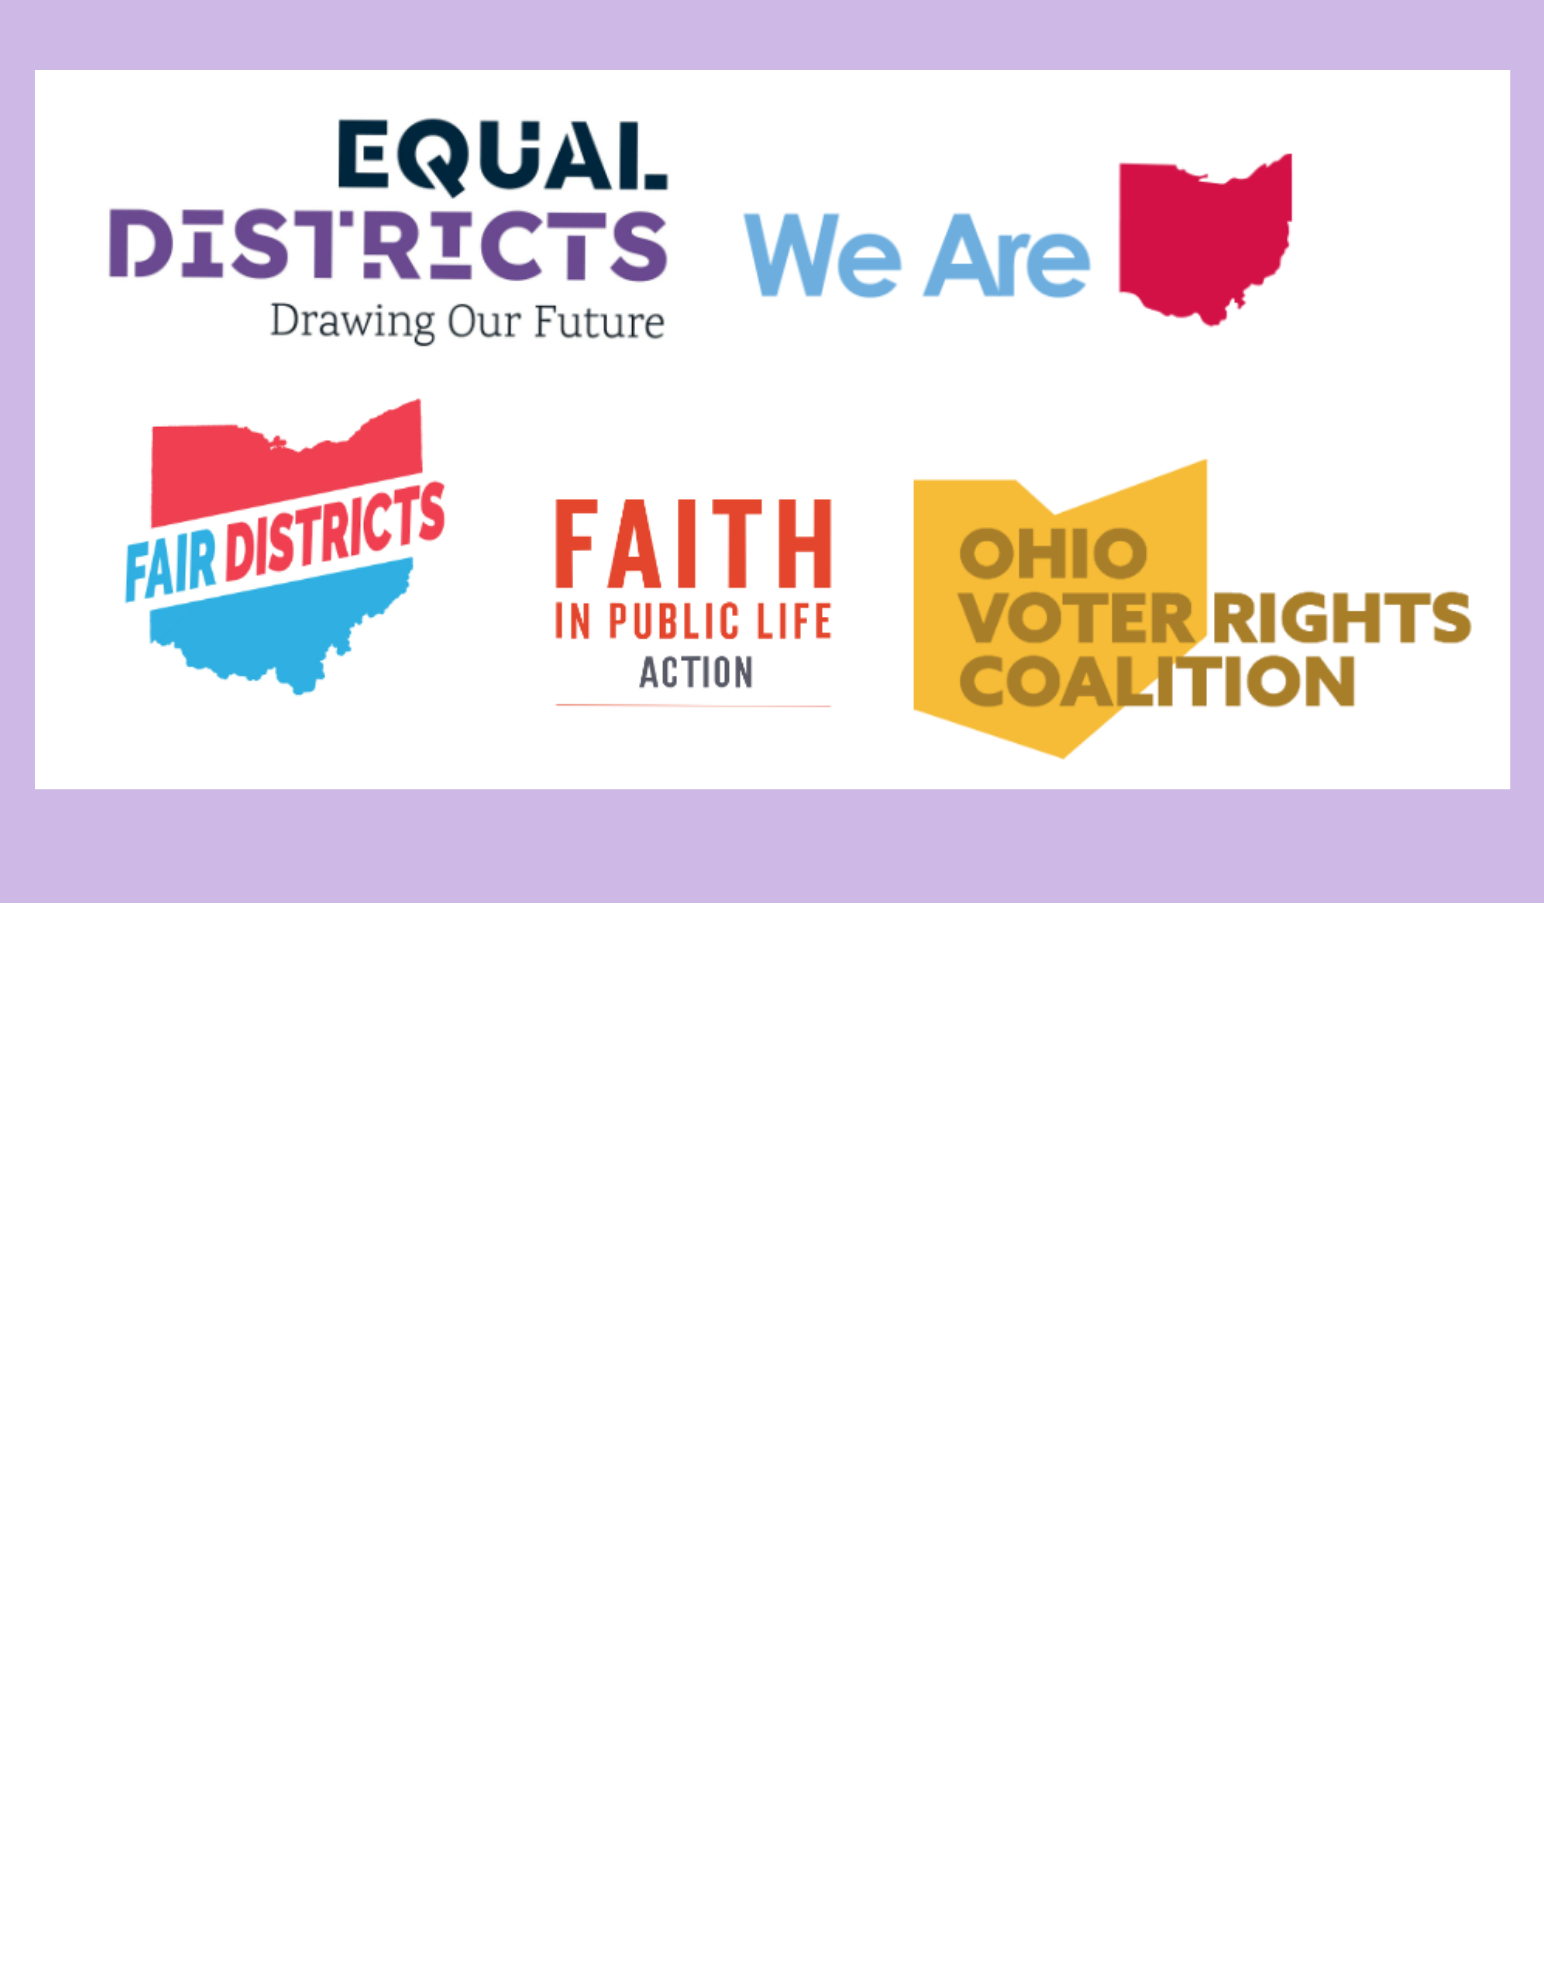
#include "include/core/SkBlurTypes.h"
#include "include/core/SkCanvas.h"
#include "include/core/SkData.h"
#include "include/core/SkFont.h"
#include "include/core/SkFontMgr.h"
#include "include/core/SkImage.h"
#include "include/core/SkMaskFilter.h"
#include "include/core/SkPaint.h"
#include "include/core/SkPathBuilder.h"
#include "include/core/SkTextBlob.h"
#include "include/effects/SkDashPathEffect.h"
#include "include/effects/SkGradientShader.h"
#include "include/utils/SkParsePath.h"

extern sk_sp<SkFontMgr> fontMgr;

static void fillRect(SkCanvas* canvas, float x, float y, float w, float h, SkColor color) {
    SkPaint ink(SkColor4f::FromColor(color));
    ink.setAntiAlias(true);
    canvas->drawRect(SkRect::MakeXYWH(x, y, w, h), ink);
}

static void drawPhoto(SkCanvas* canvas, const char* path, float x, float y, float w, float h) {
    auto image = SkImages::DeferredFromEncodedData(SkData::MakeFromFileName(path));
    canvas->drawImageRect(image, SkRect::MakeXYWH(x, y, w, h), SkSamplingOptions());
}

void draw(SkCanvas* canvas) {
    SkPaint paint;
    paint.setAntiAlias(true);
    canvas->clear(0xFFFFFFFF);
    fillRect(canvas, 0, 0, 1544, 903, 0xFFCDB8E6);
    drawPhoto(canvas, "assets/img1.png", 35, 70, 1476, 720);
}
